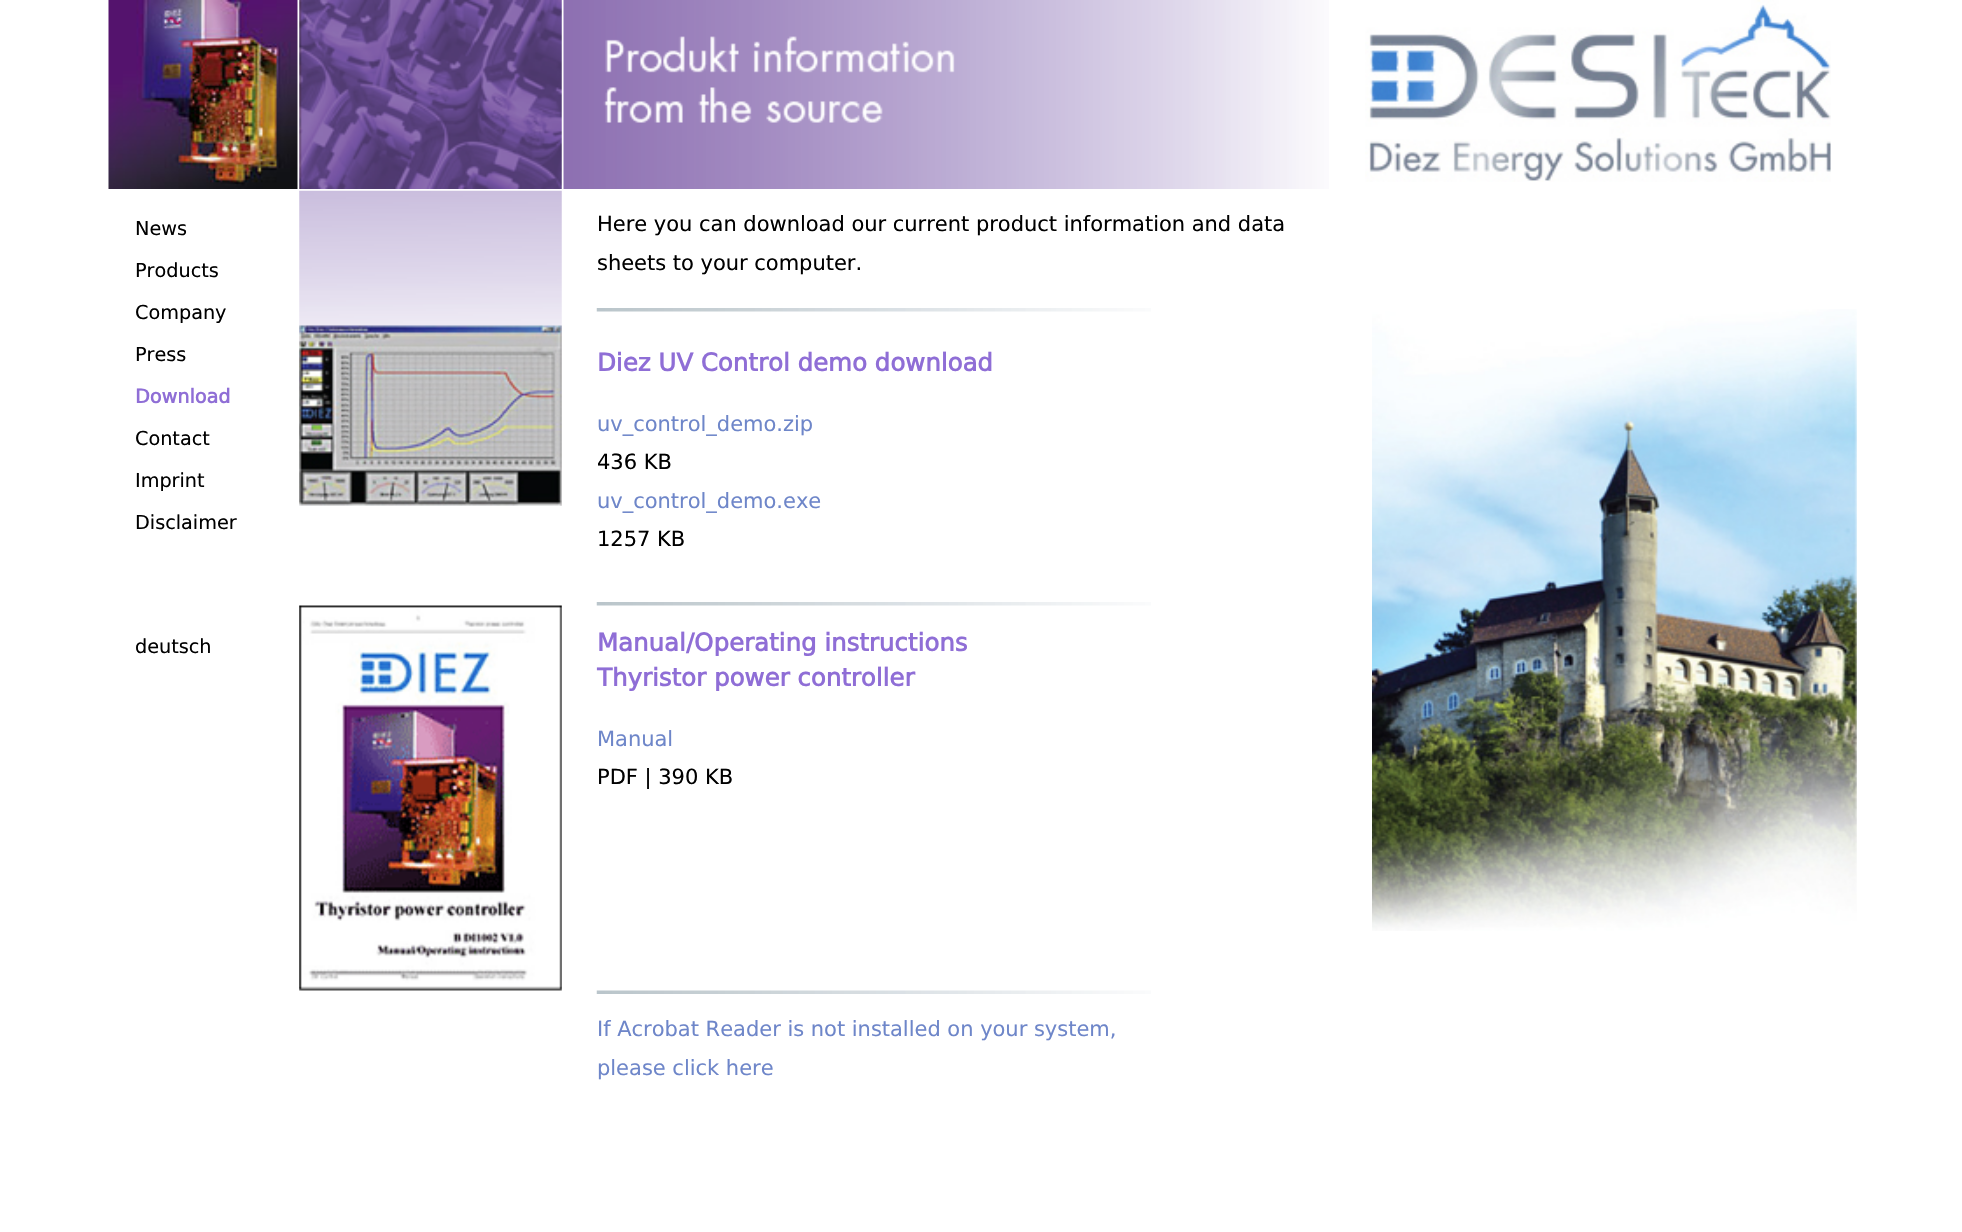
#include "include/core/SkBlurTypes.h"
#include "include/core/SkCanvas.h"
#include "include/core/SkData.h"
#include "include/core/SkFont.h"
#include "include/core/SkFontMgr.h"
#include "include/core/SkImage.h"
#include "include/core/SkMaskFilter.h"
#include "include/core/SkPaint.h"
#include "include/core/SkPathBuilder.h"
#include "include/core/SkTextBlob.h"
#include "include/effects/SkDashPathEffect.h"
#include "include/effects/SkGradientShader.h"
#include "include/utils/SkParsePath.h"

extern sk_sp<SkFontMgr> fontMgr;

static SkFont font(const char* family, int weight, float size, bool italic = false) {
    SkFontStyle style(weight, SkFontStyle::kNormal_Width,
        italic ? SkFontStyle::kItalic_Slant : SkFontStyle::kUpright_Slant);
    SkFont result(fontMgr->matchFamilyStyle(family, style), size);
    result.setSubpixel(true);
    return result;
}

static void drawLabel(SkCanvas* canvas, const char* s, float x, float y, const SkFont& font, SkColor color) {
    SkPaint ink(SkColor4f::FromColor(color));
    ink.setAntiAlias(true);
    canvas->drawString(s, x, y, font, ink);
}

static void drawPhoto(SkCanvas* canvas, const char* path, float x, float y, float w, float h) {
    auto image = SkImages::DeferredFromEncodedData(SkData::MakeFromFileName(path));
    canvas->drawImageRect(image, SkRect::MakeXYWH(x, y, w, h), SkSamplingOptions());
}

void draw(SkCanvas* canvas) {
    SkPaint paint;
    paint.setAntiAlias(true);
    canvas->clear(0xFFFFFFFF);
    drawPhoto(canvas, "assets/img1.png", 108, 0, 190, 189);
    drawPhoto(canvas, "assets/img2.png", 299, 0, 263, 189);
    drawPhoto(canvas, "assets/img3.png", 563, 0, 766, 189);
    drawPhoto(canvas, "assets/img4.png", 1365, 0, 466, 182);
    SkFont font1 = font("DejaVu Sans", 400, 19.25f);
    drawLabel(canvas, "News", 135, 235, font1, 0xFF000000);
    drawLabel(canvas, "Products", 135, 277, font1, 0xFF000000);
    drawLabel(canvas, "Company", 135, 319, font1, 0xFF000000);
    drawLabel(canvas, "Press", 135, 361, font1, 0xFF000000);
    SkFont font2 = font("DejaVu Sans", 700, 19.25f);
    drawLabel(canvas, "Download", 135, 403, font2, 0xFF8F6ED6);
    drawLabel(canvas, "Contact", 135, 445, font1, 0xFF000000);
    drawLabel(canvas, "Imprint", 135, 487, font1, 0xFF000000);
    drawLabel(canvas, "Disclaimer", 135, 529, font1, 0xFF000000);
    drawLabel(canvas, "deutsch", 135, 653, font1, 0xFF000000);
    drawPhoto(canvas, "assets/img5.png", 299, 190, 263, 184);
    SkFont font3 = font("DejaVu Sans", 400, 21);
    drawLabel(canvas, "Here you can download our current product information and data", 597, 231, font3, 0xFF000000);
    drawLabel(canvas, "sheets to your computer.", 597, 270, font3, 0xFF000000);
    drawPhoto(canvas, "assets/img6.png", 596, 308, 555, 4);
    drawPhoto(canvas, "assets/img7.png", 299, 325, 263, 181);
    SkFont font4 = font("DejaVu Sans", 700, 24.5f);
    drawLabel(canvas, "Diez UV Control demo download", 597, 371, font4, 0xFF8F6ED6);
    drawLabel(canvas, "uv_control_demo.zip", 597, 431, font3, 0xFF6E86C9);
    drawLabel(canvas, "436 KB", 597, 469, font3, 0xFF000000);
    drawLabel(canvas, "uv_control_demo.exe", 597, 508, font3, 0xFF6E86C9);
    drawLabel(canvas, "1257 KB", 597, 546, font3, 0xFF000000);
    drawPhoto(canvas, "assets/img6.png", 596, 602, 555, 4);
    drawPhoto(canvas, "assets/img8.png", 299, 605, 263, 386);
    drawLabel(canvas, "Manual/Operating instructions", 597, 651, font4, 0xFF8F6ED6);
    drawLabel(canvas, "Thyristor power controller", 597, 686, font4, 0xFF8F6ED6);
    drawLabel(canvas, "Manual", 597, 746, font3, 0xFF6E86C9);
    drawLabel(canvas, "PDF | 390 KB", 597, 784, font3, 0xFF000000);
    drawPhoto(canvas, "assets/img9.png", 596, 990, 555, 4);
    drawLabel(canvas, "If Acrobat Reader is not installed on your system,", 597, 1036, font3, 0xFF6E86C9);
    drawLabel(canvas, "please click here", 597, 1075, font3, 0xFF6E86C9);
    drawPhoto(canvas, "assets/img10.png", 1372, 309, 485, 622);
}
